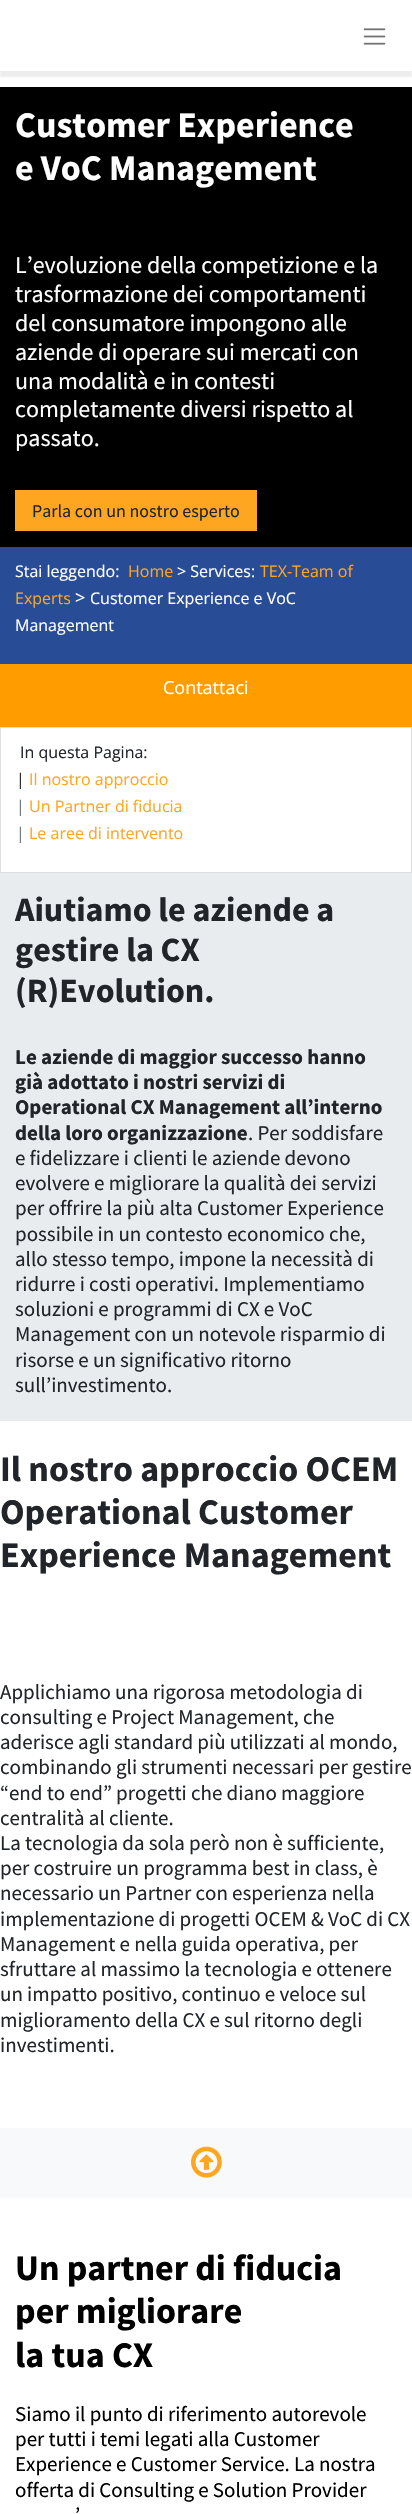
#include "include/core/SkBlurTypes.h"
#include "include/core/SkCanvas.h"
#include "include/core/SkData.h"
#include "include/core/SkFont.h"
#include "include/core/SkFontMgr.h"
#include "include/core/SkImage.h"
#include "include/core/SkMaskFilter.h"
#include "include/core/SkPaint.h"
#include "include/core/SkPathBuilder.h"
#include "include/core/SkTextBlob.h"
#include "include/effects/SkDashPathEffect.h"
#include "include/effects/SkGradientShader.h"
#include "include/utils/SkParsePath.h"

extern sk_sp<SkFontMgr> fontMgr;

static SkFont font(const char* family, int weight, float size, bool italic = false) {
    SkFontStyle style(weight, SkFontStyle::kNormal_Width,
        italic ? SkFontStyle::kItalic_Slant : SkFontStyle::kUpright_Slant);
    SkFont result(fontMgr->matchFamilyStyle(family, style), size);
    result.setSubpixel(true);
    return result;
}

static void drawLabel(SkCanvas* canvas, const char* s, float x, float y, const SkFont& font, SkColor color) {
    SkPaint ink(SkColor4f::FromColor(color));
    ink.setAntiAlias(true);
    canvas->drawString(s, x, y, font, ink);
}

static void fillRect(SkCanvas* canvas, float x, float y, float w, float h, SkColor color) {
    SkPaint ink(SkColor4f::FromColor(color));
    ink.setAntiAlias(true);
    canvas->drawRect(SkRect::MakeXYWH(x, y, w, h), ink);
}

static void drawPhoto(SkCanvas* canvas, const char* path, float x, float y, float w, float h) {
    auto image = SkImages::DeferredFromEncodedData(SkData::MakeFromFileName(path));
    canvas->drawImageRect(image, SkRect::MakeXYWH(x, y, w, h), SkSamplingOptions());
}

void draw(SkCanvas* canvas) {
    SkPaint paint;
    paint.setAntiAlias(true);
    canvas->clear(0xFFFFFFFF);
    canvas->save();
    canvas->clipRect(SkRect::MakeXYWH(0, 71, 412, 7));
    paint.setColor(0x12000000);
    paint.setMaskFilter(SkMaskFilter::MakeBlur(kNormal_SkBlurStyle, 1));
    canvas->drawRect(SkRect::MakeXYWH(0, 6, 412, 71), paint);
    paint.setMaskFilter(nullptr);
    canvas->restore();
    drawPhoto(canvas, "assets/img1.png", 363, 28, 23, 17);
    fillRect(canvas, 0, 87, 412, 460, 0xFF000000);
    SkFont font1 = font("Source Sans Pro", 700, 36);
    drawLabel(canvas, "Customer Experience", 15, 137, font1, 0xFFFFFFFF);
    drawLabel(canvas, "e VoC Management", 15, 180, font1, 0xFFFFFFFF);
    SkFont font2 = font("Source Sans Pro", 400, 24);
    drawLabel(canvas, "L’evoluzione della competizione e la", 15, 273, font2, 0xFFFFFFFF);
    drawLabel(canvas, "trasformazione dei comportamenti", 15, 302, font2, 0xFFFFFFFF);
    drawLabel(canvas, "del consumatore impongono alle", 15, 331, font2, 0xFFFFFFFF);
    drawLabel(canvas, "aziende di operare sui mercati con", 15, 360, font2, 0xFFFFFFFF);
    drawLabel(canvas, "una modalità e in contesti", 15, 389, font2, 0xFFFFFFFF);
    drawLabel(canvas, "completamente diversi rispetto al", 15, 417, font2, 0xFFFFFFFF);
    drawLabel(canvas, "passato.", 15, 446, font2, 0xFFFFFFFF);
    fillRect(canvas, 15, 490, 242, 41, 0xFFFFA621);
    SkFont font3 = font("Source Sans Pro", 400, 18);
    drawLabel(canvas, "Parla con un nostro esperto", 32, 517, font3, 0xFF212529);
    fillRect(canvas, 0, 547, 412, 117, 0xFF284C96);
    SkFont font4 = font("Open Sans", 400, 16);
    drawLabel(canvas, "Stai leggendo:", 15, 577, font4, 0xFFFFFFFF);
    drawLabel(canvas, "Home", 128, 577, font4, 0xFFFFA621);
    drawLabel(canvas, "> Services:", 177, 577, font4, 0xFFFFFFFF);
    drawLabel(canvas, "TEX-Team of", 260, 577, font4, 0xFFFFA621);
    drawLabel(canvas, "Experts", 15, 604, font4, 0xFFFFA621);
    SkFont font5 = font("Open Sans", 400, 18);
    drawLabel(canvas, ">", 75, 604, font5, 0xFFFFFFFF);
    drawLabel(canvas, "Customer Experience e VoC", 90, 604, font4, 0xFFFFFFFF);
    drawLabel(canvas, "Management", 15, 631, font4, 0xFFFFFFFF);
    fillRect(canvas, 0, 664, 412, 63, 0xFFFF9C00);
    drawLabel(canvas, "Contattaci", 163, 694, font5, 0xFFFFFFFF);
    paint.setStroke(true);
    paint.setStrokeWidth(1);
    paint.setColor(0xFFDEDEDF);
    canvas->drawRect(SkRect::MakeXYWH(0.5f, 727.5f, 411, 145), paint);
    drawLabel(canvas, "In questa Pagina:", 20, 758, font4, 0xFF212529);
    drawLabel(canvas, "|", 16, 785, font4, 0xFF212529);
    drawLabel(canvas, "Il nostro approccio", 29, 785, font4, 0xFFFFA621);
    drawLabel(canvas, "|", 16, 812, font4, 0xFF6C757D);
    drawLabel(canvas, "Un Partner di fiducia", 29, 812, font4, 0xFFFFA621);
    drawLabel(canvas, "|", 16, 839, font4, 0xFF6C757D);
    drawLabel(canvas, "Le aree di intervento", 29, 839, font4, 0xFFFFA621);
    fillRect(canvas, 0, 873, 412, 548, 0xFFE9ECEF);
    SkFont font6 = font("Source Sans Pro", 700, 34);
    drawLabel(canvas, "Aiutiamo le aziende a", 15, 921, font6, 0xFF212529);
    drawLabel(canvas, "gestire la CX", 15, 961, font6, 0xFF212529);
    drawLabel(canvas, "(R)Evolution.", 15, 1002, font6, 0xFF212529);
    SkFont font7 = font("Source Sans Pro", 700, 21);
    drawLabel(canvas, "Le aziende di maggior successo hanno", 15, 1064, font7, 0xFF212529);
    drawLabel(canvas, "già adottato i nostri servizi di", 15, 1089, font7, 0xFF212529);
    drawLabel(canvas, "Operational CX Management all’interno", 15, 1114, font7, 0xFF212529);
    drawLabel(canvas, "della loro organizzazione", 15, 1140, font7, 0xFF212529);
    SkFont font8 = font("Source Sans Pro", 400, 21);
    drawLabel(canvas, ". Per soddisfare", 248, 1140, font8, 0xFF212529);
    drawLabel(canvas, "e fidelizzare i clienti le aziende devono", 15, 1165, font8, 0xFF212529);
    drawLabel(canvas, "evolvere e migliorare la qualità dei servizi", 15, 1190, font8, 0xFF212529);
    drawLabel(canvas, "per offrire la più alta Customer Experience", 15, 1215, font8, 0xFF212529);
    drawLabel(canvas, "possibile in un contesto economico che,", 15, 1241, font8, 0xFF212529);
    drawLabel(canvas, "allo stesso tempo, impone la necessità di", 15, 1266, font8, 0xFF212529);
    drawLabel(canvas, "ridurre i costi operativi. Implementiamo", 15, 1291, font8, 0xFF212529);
    drawLabel(canvas, "soluzioni e programmi di CX e VoC", 15, 1316, font8, 0xFF212529);
    drawLabel(canvas, "Management con un notevole risparmio di", 15, 1341, font8, 0xFF212529);
    drawLabel(canvas, "risorse e un significativo ritorno", 15, 1367, font8, 0xFF212529);
    drawLabel(canvas, "sull’investimento.", 15, 1392, font8, 0xFF212529);
    drawLabel(canvas, "Il nostro approccio OCEM", 0, 1481, font1, 0xFF212529);
    drawLabel(canvas, "Operational Customer", 0, 1524, font1, 0xFF212529);
    drawLabel(canvas, "Experience Management", 0, 1567, font1, 0xFF212529);
    drawLabel(canvas, "Applichiamo una rigorosa metodologia di", 0, 1699, font8, 0xFF212529);
    drawLabel(canvas, "consulting e Project Management, che", 0, 1724, font8, 0xFF212529);
    drawLabel(canvas, "aderisce agli standard più utilizzati al mondo,", 0, 1749, font8, 0xFF212529);
    drawLabel(canvas, "combinando gli strumenti necessari per gestire", 0, 1774, font8, 0xFF212529);
    drawLabel(canvas, "“end to end” progetti che diano maggiore", 0, 1800, font8, 0xFF212529);
    drawLabel(canvas, "centralità al cliente.", 0, 1825, font8, 0xFF212529);
    drawLabel(canvas, "La tecnologia da sola però non è sufficiente,", 0, 1850, font8, 0xFF212529);
    drawLabel(canvas, "per costruire un programma best in class, è", 0, 1875, font8, 0xFF212529);
    drawLabel(canvas, "necessario un Partner con esperienza nella", 0, 1900, font8, 0xFF212529);
    drawLabel(canvas, "implementazione di progetti OCEM & VoC di CX", 0, 1926, font8, 0xFF212529);
    drawLabel(canvas, "Management e nella guida operativa, per", 0, 1951, font8, 0xFF212529);
    drawLabel(canvas, "sfruttare al massimo la tecnologia e ottenere", 0, 1976, font8, 0xFF212529);
    drawLabel(canvas, "un impatto positivo, continuo e veloce sul", 0, 2001, font8, 0xFF212529);
    drawLabel(canvas, "miglioramento della CX e sul ritorno degli", 0, 2027, font8, 0xFF212529);
    drawLabel(canvas, "investimenti.", 0, 2052, font8, 0xFF212529);
    fillRect(canvas, 0, 2128, 412, 70, 0xFFF8F9FA);
    drawPhoto(canvas, "assets/img2.png", 191, 2146, 31, 32);
    drawLabel(canvas, "Un partner di fiducia", 15, 2280, font1, 0xFF000000);
    drawLabel(canvas, "per migliorare", 15, 2323, font1, 0xFF000000);
    drawLabel(canvas, "la tua CX", 15, 2367, font1, 0xFF000000);
    drawLabel(canvas, "Siamo il punto di riferimento autorevole", 15, 2421, font8, 0xFF000000);
    drawLabel(canvas, "per tutti i temi legati alla Customer", 15, 2446, font8, 0xFF000000);
    drawLabel(canvas, "Experience e Customer Service. La nostra", 15, 2471, font8, 0xFF000000);
    drawLabel(canvas, "offerta di Consulting e Solution Provider", 15, 2497, font8, 0xFF000000);
    drawLabel(canvas, "’", 75, 2522, font8, 0xFF000000);
}
